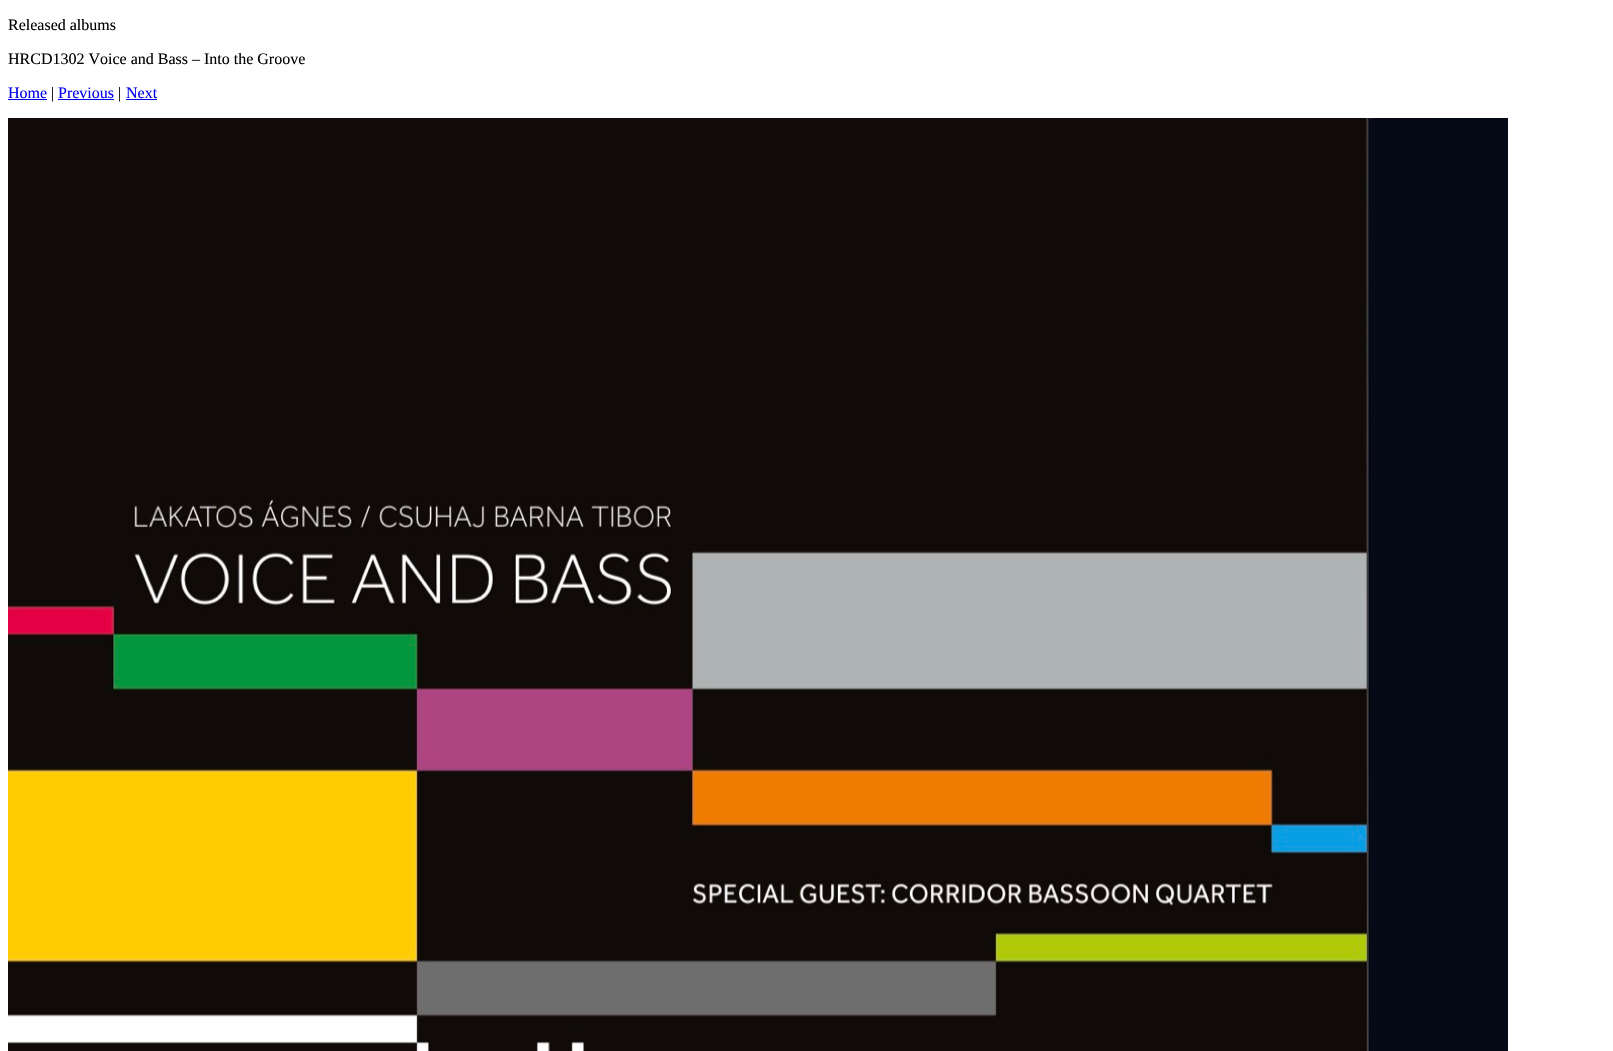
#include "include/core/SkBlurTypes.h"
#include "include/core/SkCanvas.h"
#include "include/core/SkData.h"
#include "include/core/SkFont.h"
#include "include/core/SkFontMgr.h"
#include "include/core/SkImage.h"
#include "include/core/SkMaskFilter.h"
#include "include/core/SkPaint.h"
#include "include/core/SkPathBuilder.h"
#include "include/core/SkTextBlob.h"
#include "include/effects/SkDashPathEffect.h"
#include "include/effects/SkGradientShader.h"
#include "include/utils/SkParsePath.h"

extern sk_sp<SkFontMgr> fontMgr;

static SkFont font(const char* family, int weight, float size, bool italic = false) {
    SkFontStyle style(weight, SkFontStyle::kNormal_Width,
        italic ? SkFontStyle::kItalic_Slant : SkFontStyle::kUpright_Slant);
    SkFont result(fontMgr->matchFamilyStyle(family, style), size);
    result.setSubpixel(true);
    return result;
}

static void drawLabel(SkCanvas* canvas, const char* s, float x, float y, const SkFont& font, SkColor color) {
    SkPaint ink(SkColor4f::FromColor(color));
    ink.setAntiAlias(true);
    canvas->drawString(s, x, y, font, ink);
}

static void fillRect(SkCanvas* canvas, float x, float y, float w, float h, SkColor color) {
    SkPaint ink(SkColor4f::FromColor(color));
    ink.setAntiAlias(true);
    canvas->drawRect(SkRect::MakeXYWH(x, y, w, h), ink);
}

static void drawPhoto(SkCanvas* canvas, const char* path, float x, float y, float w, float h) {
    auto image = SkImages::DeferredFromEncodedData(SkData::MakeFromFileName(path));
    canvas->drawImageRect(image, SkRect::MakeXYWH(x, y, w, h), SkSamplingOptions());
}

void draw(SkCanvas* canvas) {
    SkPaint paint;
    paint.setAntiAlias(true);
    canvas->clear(0xFFFFFFFF);
    SkFont font1 = font("Liberation Serif", 400, 16);
    drawLabel(canvas, "Released albums", 8, 30, font1, 0xFF000000);
    drawLabel(canvas, "HRCD1302 Voice and Bass – Into the Groove", 8, 64, font1, 0xFF000000);
    drawLabel(canvas, "Home", 8, 98, font1, 0xFF0000EE);
    fillRect(canvas, 8, 99, 39, 1, 0xFF0000EE);
    drawLabel(canvas, "|", 51, 98, font1, 0xFF000000);
    drawLabel(canvas, "Previous", 58, 98, font1, 0xFF0000EE);
    fillRect(canvas, 58, 99, 56, 1, 0xFF0000EE);
    drawLabel(canvas, "|", 118, 98, font1, 0xFF000000);
    drawLabel(canvas, "Next", 126, 98, font1, 0xFF0000EE);
    fillRect(canvas, 126, 99, 31, 1, 0xFF0000EE);
    drawPhoto(canvas, "assets/img1.png", 8, 118, 1500, 933);
}
